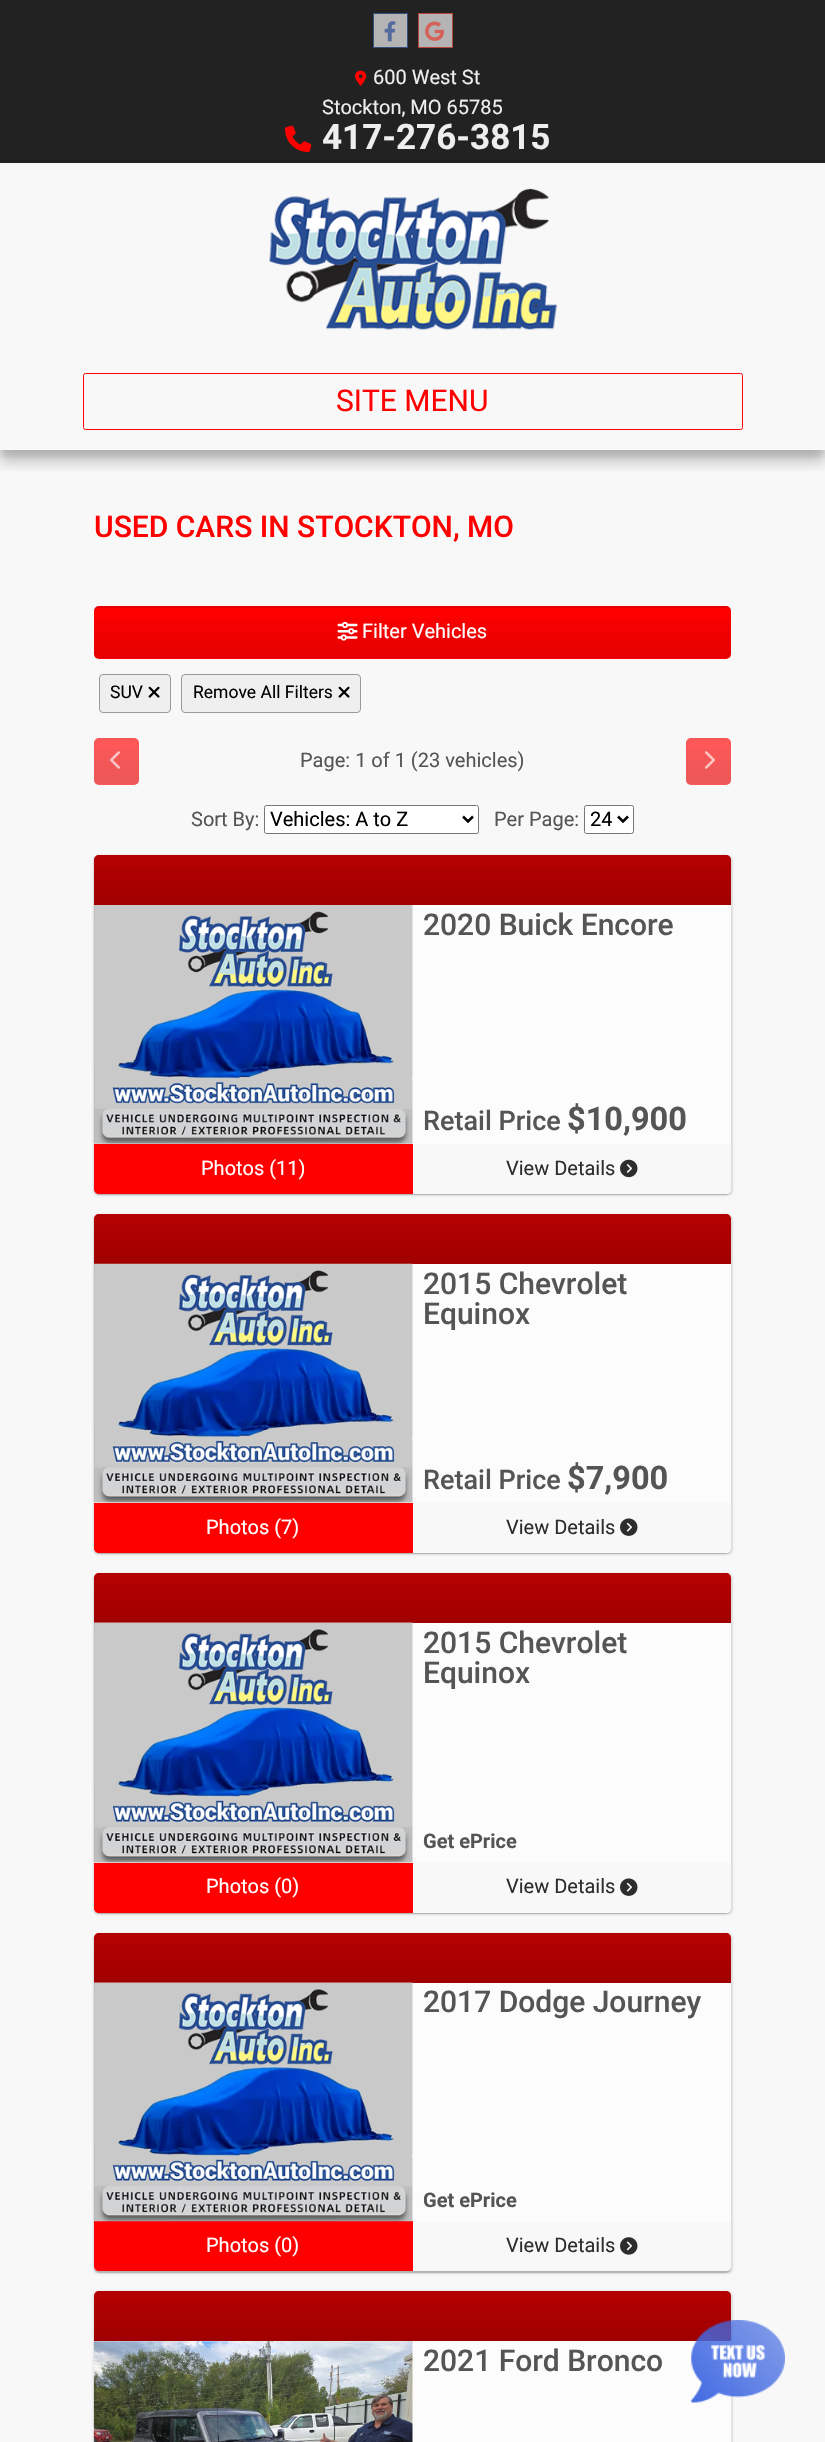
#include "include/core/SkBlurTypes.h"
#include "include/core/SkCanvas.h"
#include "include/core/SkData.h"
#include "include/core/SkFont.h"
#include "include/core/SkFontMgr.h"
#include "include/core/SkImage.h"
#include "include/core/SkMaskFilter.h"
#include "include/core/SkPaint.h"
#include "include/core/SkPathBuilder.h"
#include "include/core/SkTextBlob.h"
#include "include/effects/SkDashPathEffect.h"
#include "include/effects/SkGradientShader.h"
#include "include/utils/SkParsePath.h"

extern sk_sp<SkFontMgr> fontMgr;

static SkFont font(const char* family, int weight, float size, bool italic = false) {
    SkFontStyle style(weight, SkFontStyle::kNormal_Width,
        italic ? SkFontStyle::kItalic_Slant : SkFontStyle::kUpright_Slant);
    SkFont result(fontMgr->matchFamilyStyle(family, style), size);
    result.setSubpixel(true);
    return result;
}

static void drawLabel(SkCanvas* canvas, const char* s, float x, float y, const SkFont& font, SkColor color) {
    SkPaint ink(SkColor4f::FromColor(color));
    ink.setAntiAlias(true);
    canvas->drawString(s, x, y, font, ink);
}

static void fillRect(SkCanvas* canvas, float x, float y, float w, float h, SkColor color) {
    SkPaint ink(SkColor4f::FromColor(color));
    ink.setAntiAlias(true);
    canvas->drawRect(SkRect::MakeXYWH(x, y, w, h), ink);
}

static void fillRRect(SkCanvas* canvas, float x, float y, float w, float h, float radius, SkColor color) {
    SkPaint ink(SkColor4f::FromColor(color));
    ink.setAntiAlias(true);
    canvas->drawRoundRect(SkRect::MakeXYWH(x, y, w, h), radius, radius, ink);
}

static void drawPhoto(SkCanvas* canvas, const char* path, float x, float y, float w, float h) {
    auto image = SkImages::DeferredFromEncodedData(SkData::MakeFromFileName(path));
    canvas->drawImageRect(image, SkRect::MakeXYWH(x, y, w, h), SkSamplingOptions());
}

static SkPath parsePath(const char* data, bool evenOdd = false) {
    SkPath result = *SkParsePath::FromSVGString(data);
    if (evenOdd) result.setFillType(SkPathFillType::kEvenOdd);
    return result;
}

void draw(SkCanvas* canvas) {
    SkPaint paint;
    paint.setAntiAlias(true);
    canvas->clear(0xFFF8F8F8);
    canvas->save();
    canvas->clipRect(SkRect::MakeXYWH(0, 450, 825, 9));
    paint.setColor(0x1A000000);
    paint.setMaskFilter(SkMaskFilter::MakeBlur(kNormal_SkBlurStyle, 3));
    canvas->drawRect(SkRect::MakeXYWH(0, 6, 825, 450), paint);
    paint.setMaskFilter(nullptr);
    canvas->restore();
    canvas->save();
    canvas->clipRect(SkRect::MakeXYWH(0, 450, 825, 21));
    paint.setColor(0x33000000);
    paint.setMaskFilter(SkMaskFilter::MakeBlur(kNormal_SkBlurStyle, 6));
    canvas->drawRect(SkRect::MakeXYWH(0, 13, 825, 450), paint);
    paint.setMaskFilter(nullptr);
    canvas->restore();
    fillRect(canvas, 0, 0, 825, 163, 0xFF222222);
    paint.setColor(0xD9CDCDCD);
    canvas->drawRect(SkRect::MakeXYWH(373.5f, 13.5f, 34, 34), paint);
    paint.setStroke(true);
    paint.setStrokeWidth(1);
    paint.setColor(0xFF364E80);
    canvas->drawRect(SkRect::MakeXYWH(373.5f, 13.5f, 34, 34), paint);
    drawPhoto(canvas, "assets/img1.png", 384, 21, 12, 21);
    paint.setStroke(false);
    paint.setColor(0xD9CDCDCD);
    canvas->drawRect(SkRect::MakeXYWH(418.5f, 13.5f, 34, 34), paint);
    paint.setStroke(true);
    paint.setColor(0xFFB7453B);
    canvas->drawRect(SkRect::MakeXYWH(418.5f, 13.5f, 34, 34), paint);
    drawPhoto(canvas, "assets/img2.png", 425, 21, 19, 20);
    drawPhoto(canvas, "assets/img3.png", 355, 70, 12, 16);
    SkFont font1 = font("Roboto", 400, 20);
    drawLabel(canvas, "600 West St", 373, 84, font1, 0xFFEEEEEE);
    drawLabel(canvas, "Stockton, MO 65785", 322, 114, font1, 0xFFEEEEEE);
    drawPhoto(canvas, "assets/img4.png", 285, 125, 27, 27);
    SkFont font2 = font("Roboto", 700, 35);
    drawLabel(canvas, "417-276-3815", 322, 149, font2, 0xFFEEEEEE);
    drawPhoto(canvas, "assets/img5.png", 269, 188, 288, 142);
    paint.setColor(0xFFFF0000);
    canvas->drawRoundRect(SkRect::MakeXYWH(83.5f, 373.5f, 659, 56), 2, 2, paint);
    SkFont font3 = font("Roboto", 400, 30);
    drawLabel(canvas, "SITE MENU", 336, 411, font3, 0xFFFF0000);
    SkFont font4 = font("Roboto", 500, 30);
    drawLabel(canvas, "USED CARS IN STOCKTON, MO", 94, 537, font4, 0xFFFF0000);
    fillRRect(canvas, 94, 606, 637, 53, 5, 0xFFFF0000);
    canvas->save();
    canvas->clipPath(parsePath("M99 606H726C729 606 731 608 731 611V654C731 657 729 659 726 659H99C96 659 94 657 94 654V611C94 608 96 606 99 606Z"), true);
    paint.setStroke(false);
    {
        const SkColor colors[] = {0x00000000, 0x1A000000};
        const float stops[] = {0, 1};
        const SkPoint ends[] = {{413, 557}, {413, 608}};
        paint.setShader(SkGradientShader::MakeLinear(ends, colors, stops, 2, SkTileMode::kClamp));
        paint.setAlpha(255);
    }
    canvas->drawRect(SkRect::MakeXYWH(94, 606, 637, 2), paint);
    {
        const SkColor colors[] = {0x00000000, 0x1A000000};
        const float stops[] = {0, 1};
        const SkPoint ends[] = {{413, 607}, {413, 658}};
        paint.setShader(SkGradientShader::MakeLinear(ends, colors, stops, 2, SkTileMode::kClamp));
        paint.setAlpha(255);
    }
    canvas->drawRect(SkRect::MakeXYWH(94, 618, 637, 40), paint);
    canvas->restore();
    drawPhoto(canvas, "assets/img6.png", 337, 621, 21, 20);
    drawLabel(canvas, "Filter Vehicles", 362, 638, font1, 0xFFFFFFFF);
    paint.setShader(nullptr);
    paint.setColor(0xFFEFEFEF);
    canvas->drawRoundRect(SkRect::MakeXYWH(99.5f, 674.5f, 71, 38), 3.5f, 3.5f, paint);
    paint.setStroke(true);
    paint.setColor(0xFF999999);
    canvas->drawRoundRect(SkRect::MakeXYWH(99.5f, 674.5f, 71, 38), 3.5f, 3.5f, paint);
    SkFont font5 = font("Roboto", 400, 17.5f);
    drawLabel(canvas, "SUV", 110, 698, font5, 0xFF000000);
    drawPhoto(canvas, "assets/img7.png", 148, 686, 12, 12);
    paint.setStroke(false);
    paint.setColor(0xFFEFEFEF);
    canvas->drawRoundRect(SkRect::MakeXYWH(181.5f, 674.5f, 179, 38), 3.5f, 3.5f, paint);
    paint.setStroke(true);
    paint.setColor(0xFF999999);
    canvas->drawRoundRect(SkRect::MakeXYWH(181.5f, 674.5f, 179, 38), 3.5f, 3.5f, paint);
    drawLabel(canvas, "Remove All Filters", 193, 698, font5, 0xFF000000);
    drawPhoto(canvas, "assets/img7.png", 338, 686, 12, 12);
    fillRRect(canvas, 94, 738, 45, 47, 5, 0xFFFD5757);
    canvas->save();
    canvas->clipPath(parsePath("M99 738H134C137 738 139 740 139 743V780C139 783 137 785 134 785H99C96 785 94 783 94 780V743C94 740 96 738 99 738Z"), true);
    paint.setStroke(false);
    {
        const SkColor colors[] = {0x00575757, 0x1A575757};
        const float stops[] = {0, 1};
        const SkPoint ends[] = {{116, 694}, {116, 739}};
        paint.setShader(SkGradientShader::MakeLinear(ends, colors, stops, 2, SkTileMode::kClamp));
        paint.setAlpha(255);
    }
    canvas->drawRect(SkRect::MakeXYWH(94, 738, 45, 1), paint);
    {
        const SkColor colors[] = {0x00575757, 0x1A575757};
        const float stops[] = {0, 1};
        const SkPoint ends[] = {{116, 739}, {116, 784}};
        paint.setShader(SkGradientShader::MakeLinear(ends, colors, stops, 2, SkTileMode::kClamp));
        paint.setAlpha(255);
    }
    canvas->drawRect(SkRect::MakeXYWH(94, 749, 45, 35), paint);
    canvas->restore();
    drawPhoto(canvas, "assets/img8.png", 110, 751, 10, 18);
    drawLabel(canvas, "Page: 1 of 1 (23 vehicles)", 300, 767, font1, 0xFF555555);
    fillRRect(canvas, 686, 738, 45, 47, 5, 0xFFFD5757);
    canvas->save();
    canvas->clipPath(parsePath("M691 738H726C729 738 731 740 731 743V780C731 783 729 785 726 785H691C688 785 686 783 686 780V743C686 740 688 738 691 738Z"), true);
    {
        const SkColor colors[] = {0x00575757, 0x1A575757};
        const float stops[] = {0, 1};
        const SkPoint ends[] = {{709, 694}, {709, 739}};
        paint.setShader(SkGradientShader::MakeLinear(ends, colors, stops, 2, SkTileMode::kClamp));
        paint.setAlpha(255);
    }
    canvas->drawRect(SkRect::MakeXYWH(686, 738, 45, 1), paint);
    {
        const SkColor colors[] = {0x00575757, 0x1A575757};
        const float stops[] = {0, 1};
        const SkPoint ends[] = {{709, 739}, {709, 784}};
        paint.setShader(SkGradientShader::MakeLinear(ends, colors, stops, 2, SkTileMode::kClamp));
        paint.setAlpha(255);
    }
    canvas->drawRect(SkRect::MakeXYWH(686, 749, 45, 35), paint);
    canvas->restore();
    drawPhoto(canvas, "assets/img9.png", 705, 751, 10, 18);
    drawLabel(canvas, "Sort By:", 191, 826, font1, 0xFF555555);
    paint.setShader(nullptr);
    paint.setColor(0xFFFFFFFF);
    canvas->drawRoundRect(SkRect::MakeXYWH(264.5f, 805.5f, 214, 28), 2, 2, paint);
    paint.setStroke(true);
    paint.setColor(0xFF767676);
    canvas->drawRoundRect(SkRect::MakeXYWH(264.5f, 805.5f, 214, 28), 2, 2, paint);
    paint.setStrokeWidth(2.5f);
    paint.setColor(0xFF000000);
    canvas->drawPath(parsePath("M463 816.5L468 821.5L473 816.5"), paint);
    drawLabel(canvas, "Vehicles: A to Z", 270, 826, font1, 0xFF000000);
    drawLabel(canvas, "Per Page:", 494, 826, font1, 0xFF555555);
    paint.setStroke(false);
    paint.setColor(0xFFFFFFFF);
    canvas->drawRoundRect(SkRect::MakeXYWH(584.5f, 805.5f, 49, 28), 2, 2, paint);
    paint.setStroke(true);
    paint.setStrokeWidth(1);
    paint.setColor(0xFF767676);
    canvas->drawRoundRect(SkRect::MakeXYWH(584.5f, 805.5f, 49, 28), 2, 2, paint);
    paint.setStrokeWidth(2.5f);
    paint.setColor(0xFF000000);
    canvas->drawPath(parsePath("M618 816.5L623 821.5L628 816.5"), paint);
    drawLabel(canvas, "24", 590, 826, font1, 0xFF000000);
    canvas->save();
    canvas->clipPath(parsePath("M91 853H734V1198H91ZM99 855H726C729 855 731 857 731 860V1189C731 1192 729 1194 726 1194H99C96 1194 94 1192 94 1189V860C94 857 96 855 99 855Z", true), true);
    paint.setStroke(false);
    paint.setColor(0x33000000);
    paint.setMaskFilter(SkMaskFilter::MakeBlur(kNormal_SkBlurStyle, 0.5f));
    canvas->drawRoundRect(SkRect::MakeXYWH(94, 856, 637, 339), 5, 5, paint);
    paint.setMaskFilter(nullptr);
    canvas->restore();
    canvas->save();
    canvas->clipPath(parsePath("M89 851H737V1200H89ZM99 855H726C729 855 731 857 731 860V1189C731 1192 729 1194 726 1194H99C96 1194 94 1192 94 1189V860C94 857 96 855 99 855Z", true), true);
    paint.setColor(0x1A000000);
    paint.setMaskFilter(SkMaskFilter::MakeBlur(kNormal_SkBlurStyle, 1));
    canvas->drawRoundRect(SkRect::MakeXYWH(93, 855, 640, 341), 6, 6, paint);
    paint.setMaskFilter(nullptr);
    canvas->restore();
    fillRRect(canvas, 94, 855, 637, 339, 5, 0x99FFFFFF);
    paint.setColor(0xFFB30000);
    canvas->drawPath(parsePath("M99 855H726C729 855 731 857 731 860V905H94V860C94 857 96 855 99 855Z"), paint);
    {
        const SkColor colors[] = {0x00000000, 0x1A000000};
        const float stops[] = {0, 1};
        const SkPoint ends[] = {{413, 855}, {413, 905}};
        paint.setShader(SkGradientShader::MakeLinear(ends, colors, stops, 2, SkTileMode::kClamp));
        paint.setAlpha(255);
    }
    canvas->drawRect(SkRect::MakeXYWH(94, 866, 637, 39), paint);
    drawPhoto(canvas, "assets/img10.png", 94, 905, 319, 239);
    drawLabel(canvas, "2020 Buick Encore", 423, 935, font4, 0xFF555555);
    SkFont font6 = font("Roboto", 500, 27);
    drawLabel(canvas, "Retail Price", 423, 1130, font6, 0xFF555555);
    SkFont font7 = font("Roboto", 700, 32.5f);
    drawLabel(canvas, "$10,900", 567, 1130, font7, 0xFF555555);
    paint.setShader(nullptr);
    paint.setColor(0xFFF8F8F8);
    canvas->drawPath(parsePath("M94 1144H731V1189C731 1192 729 1194 726 1194H99C96 1194 94 1192 94 1189Z"), paint);
    paint.setColor(0xFFFF0000);
    canvas->drawPath(parsePath("M94 1144H413V1194H99C96 1194 94 1192 94 1189Z"), paint);
    drawLabel(canvas, "Photos (11)", 201, 1175, font1, 0xFFFFFFFF);
    drawLabel(canvas, "View Details", 506, 1175, font1, 0xFF2D2D2D);
    drawPhoto(canvas, "assets/img11.png", 620, 1159, 18, 19);
    canvas->save();
    canvas->clipPath(parsePath("M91 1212H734V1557H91ZM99 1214H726C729 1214 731 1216 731 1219V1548C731 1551 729 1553 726 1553H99C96 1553 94 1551 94 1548V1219C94 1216 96 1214 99 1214Z", true), true);
    paint.setColor(0x33000000);
    paint.setMaskFilter(SkMaskFilter::MakeBlur(kNormal_SkBlurStyle, 0.5f));
    canvas->drawRoundRect(SkRect::MakeXYWH(94, 1215, 637, 339), 5, 5, paint);
    paint.setMaskFilter(nullptr);
    canvas->restore();
    canvas->save();
    canvas->clipPath(parsePath("M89 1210H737V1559H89ZM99 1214H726C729 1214 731 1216 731 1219V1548C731 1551 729 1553 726 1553H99C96 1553 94 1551 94 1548V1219C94 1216 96 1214 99 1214Z", true), true);
    paint.setColor(0x1A000000);
    paint.setMaskFilter(SkMaskFilter::MakeBlur(kNormal_SkBlurStyle, 1));
    canvas->drawRoundRect(SkRect::MakeXYWH(93, 1214, 640, 341), 6, 6, paint);
    paint.setMaskFilter(nullptr);
    canvas->restore();
    fillRRect(canvas, 94, 1214, 637, 339, 5, 0x99FFFFFF);
    paint.setColor(0xFFB30000);
    canvas->drawPath(parsePath("M99 1214H726C729 1214 731 1216 731 1219V1264H94V1219C94 1216 96 1214 99 1214Z"), paint);
    {
        const SkColor colors[] = {0x00000000, 0x1A000000};
        const float stops[] = {0, 1};
        const SkPoint ends[] = {{413, 1214}, {413, 1264}};
        paint.setShader(SkGradientShader::MakeLinear(ends, colors, stops, 2, SkTileMode::kClamp));
        paint.setAlpha(255);
    }
    canvas->drawRect(SkRect::MakeXYWH(94, 1225, 637, 39), paint);
    drawPhoto(canvas, "assets/img12.png", 94, 1263, 319, 240);
    drawLabel(canvas, "2015 Chevrolet", 423, 1294, font4, 0xFF555555);
    drawLabel(canvas, "Equinox", 423, 1324, font4, 0xFF555555);
    drawLabel(canvas, "Retail Price", 423, 1489, font6, 0xFF555555);
    drawLabel(canvas, "$7,900", 567, 1489, font7, 0xFF555555);
    paint.setShader(nullptr);
    paint.setColor(0xFFF8F8F8);
    canvas->drawPath(parsePath("M94 1503H731V1548C731 1551 729 1553 726 1553H99C96 1553 94 1551 94 1548Z"), paint);
    paint.setColor(0xFFFF0000);
    canvas->drawPath(parsePath("M94 1503H413V1553H99C96 1553 94 1551 94 1548Z"), paint);
    drawLabel(canvas, "Photos (7)", 206, 1534, font1, 0xFFFFFFFF);
    drawLabel(canvas, "View Details", 506, 1534, font1, 0xFF2D2D2D);
    drawPhoto(canvas, "assets/img13.png", 620, 1518, 18, 18);
    canvas->save();
    canvas->clipPath(parsePath("M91 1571H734V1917H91ZM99 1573H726C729 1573 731 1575 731 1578V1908C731 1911 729 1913 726 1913H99C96 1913 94 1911 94 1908V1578C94 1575 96 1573 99 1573Z", true), true);
    paint.setColor(0x33000000);
    paint.setMaskFilter(SkMaskFilter::MakeBlur(kNormal_SkBlurStyle, 0.5f));
    canvas->drawRoundRect(SkRect::MakeXYWH(94, 1574, 637, 340), 5, 5, paint);
    paint.setMaskFilter(nullptr);
    canvas->restore();
    canvas->save();
    canvas->clipPath(parsePath("M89 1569H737V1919H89ZM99 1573H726C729 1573 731 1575 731 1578V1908C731 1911 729 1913 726 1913H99C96 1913 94 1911 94 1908V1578C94 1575 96 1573 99 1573Z", true), true);
    paint.setColor(0x1A000000);
    paint.setMaskFilter(SkMaskFilter::MakeBlur(kNormal_SkBlurStyle, 1));
    canvas->drawRoundRect(SkRect::MakeXYWH(93, 1573, 640, 342), 6, 6, paint);
    paint.setMaskFilter(nullptr);
    canvas->restore();
    fillRRect(canvas, 94, 1573, 637, 340, 5, 0x99FFFFFF);
    paint.setColor(0xFFB30000);
    canvas->drawPath(parsePath("M99 1573H726C729 1573 731 1575 731 1578V1623H94V1578C94 1575 96 1573 99 1573Z"), paint);
    {
        const SkColor colors[] = {0x00000000, 0x1A000000};
        const float stops[] = {0, 1};
        const SkPoint ends[] = {{413, 1573}, {413, 1623}};
        paint.setShader(SkGradientShader::MakeLinear(ends, colors, stops, 2, SkTileMode::kClamp));
        paint.setAlpha(255);
    }
    canvas->drawRect(SkRect::MakeXYWH(94, 1584, 637, 39), paint);
    drawPhoto(canvas, "assets/img14.png", 94, 1622, 319, 241);
    drawLabel(canvas, "2015 Chevrolet", 423, 1653, font4, 0xFF555555);
    drawLabel(canvas, "Equinox", 423, 1683, font4, 0xFF555555);
    SkFont font8 = font("Roboto", 700, 20);
    drawLabel(canvas, "Get ePrice", 423, 1848, font8, 0xFF555555);
    paint.setShader(nullptr);
    paint.setColor(0xFFF8F8F8);
    canvas->drawPath(parsePath("M94 1863H731V1908C731 1911 729 1913 726 1913H99C96 1913 94 1911 94 1908Z"), paint);
    paint.setColor(0xFFFF0000);
    canvas->drawPath(parsePath("M94 1863H413V1913H99C96 1913 94 1911 94 1908Z"), paint);
    drawLabel(canvas, "Photos (0)", 206, 1893, font1, 0xFFFFFFFF);
    drawLabel(canvas, "View Details", 506, 1893, font1, 0xFF2D2D2D);
    drawPhoto(canvas, "assets/img13.png", 620, 1878, 18, 18);
    canvas->save();
    canvas->clipPath(parsePath("M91 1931H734V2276H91ZM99 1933H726C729 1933 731 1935 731 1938V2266C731 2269 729 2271 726 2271H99C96 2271 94 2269 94 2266V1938C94 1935 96 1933 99 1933Z", true), true);
    paint.setColor(0x33000000);
    paint.setMaskFilter(SkMaskFilter::MakeBlur(kNormal_SkBlurStyle, 0.5f));
    canvas->drawRoundRect(SkRect::MakeXYWH(94, 1934, 637, 339), 5, 5, paint);
    paint.setMaskFilter(nullptr);
    canvas->restore();
    canvas->save();
    canvas->clipPath(parsePath("M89 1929H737V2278H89ZM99 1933H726C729 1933 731 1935 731 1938V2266C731 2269 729 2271 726 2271H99C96 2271 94 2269 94 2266V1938C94 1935 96 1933 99 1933Z", true), true);
    paint.setColor(0x1A000000);
    paint.setMaskFilter(SkMaskFilter::MakeBlur(kNormal_SkBlurStyle, 1));
    canvas->drawRoundRect(SkRect::MakeXYWH(93, 1933, 640, 341), 6, 6, paint);
    paint.setMaskFilter(nullptr);
    canvas->restore();
    fillRRect(canvas, 94, 1933, 637, 338, 5, 0x99FFFFFF);
    paint.setColor(0xFFB30000);
    canvas->drawPath(parsePath("M99 1933H726C729 1933 731 1935 731 1938V1983H94V1938C94 1935 96 1933 99 1933Z"), paint);
    {
        const SkColor colors[] = {0x00000000, 0x1A000000};
        const float stops[] = {0, 1};
        const SkPoint ends[] = {{413, 1933}, {413, 1983}};
        paint.setShader(SkGradientShader::MakeLinear(ends, colors, stops, 2, SkTileMode::kClamp));
        paint.setAlpha(255);
    }
    canvas->drawRect(SkRect::MakeXYWH(94, 1944, 637, 39), paint);
    paint.setShader(nullptr);
    paint.setColor(0xFFF8F8F8);
    canvas->drawPath(parsePath("M94 2221H731V2266C731 2269 729 2271 726 2271H99C96 2271 94 2269 94 2266Z"), paint);
    paint.setColor(0xFFFF0000);
    canvas->drawPath(parsePath("M94 2221H413V2271H99C96 2271 94 2269 94 2266Z"), paint);
    drawPhoto(canvas, "assets/img15.png", 94, 1982, 319, 240);
    drawLabel(canvas, "2017 Dodge Journey", 423, 2012, font4, 0xFF555555);
    drawLabel(canvas, "Get ePrice", 423, 2207, font8, 0xFF555555);
    drawLabel(canvas, "Photos (0)", 206, 2252, font1, 0xFFFFFFFF);
    drawLabel(canvas, "View Details", 506, 2252, font1, 0xFF2D2D2D);
    drawPhoto(canvas, "assets/img16.png", 620, 2237, 18, 18);
    canvas->save();
    canvas->clipPath(parsePath("M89 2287H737V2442H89ZM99 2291H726C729 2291 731 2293 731 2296V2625C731 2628 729 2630 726 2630H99C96 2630 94 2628 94 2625V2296C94 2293 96 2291 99 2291Z", true), true);
    paint.setColor(0x1A000000);
    paint.setMaskFilter(SkMaskFilter::MakeBlur(kNormal_SkBlurStyle, 1));
    canvas->drawRoundRect(SkRect::MakeXYWH(93, 2291, 640, 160), 6, 6, paint);
    paint.setMaskFilter(nullptr);
    canvas->restore();
    fillRRect(canvas, 94, 2291, 637, 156, 5, 0x99FFFFFF);
    paint.setColor(0xFFB30000);
    canvas->drawPath(parsePath("M99 2291H726C729 2291 731 2293 731 2296V2341H94V2296C94 2293 96 2291 99 2291Z"), paint);
    {
        const SkColor colors[] = {0x00000000, 0x1A000000};
        const float stops[] = {0, 1};
        const SkPoint ends[] = {{413, 2291}, {413, 2341}};
        paint.setShader(SkGradientShader::MakeLinear(ends, colors, stops, 2, SkTileMode::kClamp));
        paint.setAlpha(255);
    }
    canvas->drawRect(SkRect::MakeXYWH(94, 2302, 637, 39), paint);
    drawPhoto(canvas, "assets/img17.png", 93, 2341, 320, 101);
    drawLabel(canvas, "2021 Ford Bronco", 423, 2371, font4, 0xFF555555);
    drawPhoto(canvas, "assets/img18.png", 691, 2320, 94, 83);
}
